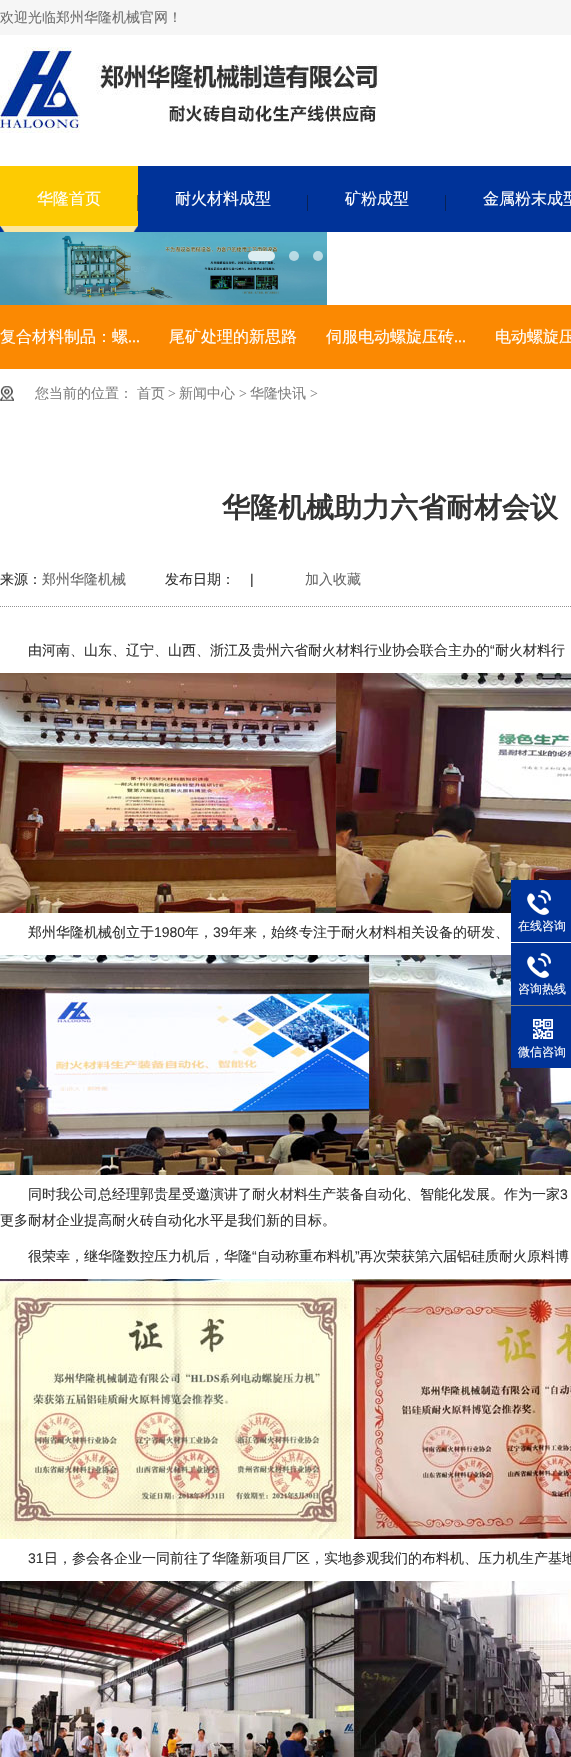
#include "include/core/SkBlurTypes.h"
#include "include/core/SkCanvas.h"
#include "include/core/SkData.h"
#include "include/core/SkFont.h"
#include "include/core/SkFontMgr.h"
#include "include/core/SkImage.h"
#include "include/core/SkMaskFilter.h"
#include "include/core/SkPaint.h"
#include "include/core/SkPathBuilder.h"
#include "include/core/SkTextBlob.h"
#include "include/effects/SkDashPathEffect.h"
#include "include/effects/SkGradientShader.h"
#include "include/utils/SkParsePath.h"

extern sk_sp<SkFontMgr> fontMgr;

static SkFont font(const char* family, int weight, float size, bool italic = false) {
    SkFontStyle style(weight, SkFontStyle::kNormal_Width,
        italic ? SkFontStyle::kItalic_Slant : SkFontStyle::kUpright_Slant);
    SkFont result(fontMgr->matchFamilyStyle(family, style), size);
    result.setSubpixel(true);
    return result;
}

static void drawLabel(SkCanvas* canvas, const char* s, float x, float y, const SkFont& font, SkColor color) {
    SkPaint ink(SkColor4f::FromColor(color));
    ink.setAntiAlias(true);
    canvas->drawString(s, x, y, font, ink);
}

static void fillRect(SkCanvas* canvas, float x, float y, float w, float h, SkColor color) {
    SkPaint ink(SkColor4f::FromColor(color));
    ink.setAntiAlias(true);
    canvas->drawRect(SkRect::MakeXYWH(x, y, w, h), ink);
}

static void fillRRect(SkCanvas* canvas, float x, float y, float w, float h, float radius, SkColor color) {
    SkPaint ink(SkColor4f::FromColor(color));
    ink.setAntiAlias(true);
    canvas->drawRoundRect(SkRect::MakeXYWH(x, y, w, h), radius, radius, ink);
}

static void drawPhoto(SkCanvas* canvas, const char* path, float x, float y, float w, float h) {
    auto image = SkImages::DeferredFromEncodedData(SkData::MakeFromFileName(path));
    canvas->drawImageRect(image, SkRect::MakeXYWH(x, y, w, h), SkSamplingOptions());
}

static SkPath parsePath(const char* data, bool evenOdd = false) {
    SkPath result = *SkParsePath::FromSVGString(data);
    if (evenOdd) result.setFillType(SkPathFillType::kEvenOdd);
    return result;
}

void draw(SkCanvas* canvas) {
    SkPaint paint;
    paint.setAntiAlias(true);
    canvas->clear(0xFFFFFFFF);
    fillRect(canvas, 0, 0, 571, 35, 0xFFF6F6F6);
    SkFont font1 = font("WenQuanYi Zen Hei", 500, 14);
    drawLabel(canvas, "欢迎光临郑州华隆机械官网！", 0, 22, font1, 0xFF6E6E6E);
    drawPhoto(canvas, "assets/img1.png", 0, 47, 379, 86);
    fillRect(canvas, 0, 166, 571, 66, 0xFF003399);
    drawPhoto(canvas, "assets/img2.png", 0, 166, 138, 66);
    SkFont font2 = font("WenQuanYi Zen Hei", 500, 16);
    drawLabel(canvas, "华隆首页", 37, 204, font2, 0xFFFFFFFF);
    fillRect(canvas, 137, 195, 1, 16, 0xFF876E09);
    drawLabel(canvas, "耐火材料成型", 175, 204, font2, 0xFFFFFFFF);
    fillRect(canvas, 307, 195, 1, 16, 0xFF082255);
    drawLabel(canvas, "矿粉成型", 345, 204, font2, 0xFFFFFFFF);
    fillRect(canvas, 445, 195, 1, 16, 0xFF082255);
    drawLabel(canvas, "金属粉末成型", 483, 204, font2, 0xFFFFFFFF);
    drawPhoto(canvas, "assets/img3.png", 0, 232, 327, 73);
    fillRRect(canvas, 248, 251, 27, 10, 5, 0xCCFFFFFF);
    paint.setColor(0x99FFFFFF);
    canvas->drawCircle(294, 256, 5, paint);
    canvas->drawCircle(318, 256, 5, paint);
    fillRect(canvas, 0, 305, 571, 64, 0xFFFB8902);
    drawLabel(canvas, "复合材料制品：螺", 0, 342, font2, 0xFFFFFFFF);
    SkFont font3 = font("Liberation Serif", 400, 16);
    drawLabel(canvas, "...", 128, 342, font3, 0xFFFFFFFF);
    drawLabel(canvas, "尾矿处理的新思路", 169, 342, font2, 0xFFFFFFFF);
    drawLabel(canvas, "伺服电动螺旋压砖", 326, 342, font2, 0xFFFFFFFF);
    drawLabel(canvas, "...", 454, 342, font3, 0xFFFFFFFF);
    drawLabel(canvas, "电动螺旋压", 495, 342, font2, 0xFFFFFFFF);
    drawPhoto(canvas, "assets/img4.png", 0, 386, 14, 15);
    drawLabel(canvas, "您当前的位置：", 35, 398, font1, 0xFF808080);
    drawLabel(canvas, "首页", 137, 398, font1, 0xFF808080);
    SkFont font4 = font("Liberation Serif", 400, 14);
    drawLabel(canvas, ">", 168, 398, font4, 0xFF808080);
    drawLabel(canvas, "新闻中心", 179, 398, font1, 0xFF808080);
    drawLabel(canvas, ">", 239, 398, font4, 0xFF808080);
    drawLabel(canvas, "华隆快讯", 250, 398, font1, 0xFF808080);
    drawLabel(canvas, ">", 310, 398, font4, 0xFF808080);
    SkFont font5 = font("WenQuanYi Zen Hei", 700, 28);
    drawLabel(canvas, "华隆机械助力六省耐材会议", 222, 517, font5, 0xFF333333);
    paint.setStroke(true);
    paint.setStrokeWidth(1);
    paint.setColor(0xFF909090);
    paint.setPathEffect(SkDashPathEffect::Make({{1, 1}}, 0));
    canvas->drawPath(parsePath("M0 606.5H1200"), paint);
    paint.setPathEffect(nullptr);
    drawLabel(canvas, "来源：", 0, 584, font1, 0xFF333333);
    drawLabel(canvas, "郑州华隆机械", 42, 584, font1, 0xFF666666);
    drawLabel(canvas, "发布日期：", 165, 584, font1, 0xFF333333);
    SkFont font6 = font("Liberation Sans", 400, 14);
    drawLabel(canvas, "|", 250, 584, font6, 0xFF333333);
    drawLabel(canvas, "加入收藏", 305, 584, font1, 0xFF666666);
    drawLabel(canvas, "由河南、山东、辽宁、山西、浙江及贵州六省耐火材料行业协会联合主办的", 28, 655, font1, 0xFF333333);
    drawLabel(canvas, "“", 490, 655, font6, 0xFF333333);
    drawLabel(canvas, "耐火材料行", 495, 655, font1, 0xFF333333);
    drawPhoto(canvas, "assets/img5.png", 0, 673, 571, 240);
    drawLabel(canvas, "郑州华隆机械创立于", 28, 937, font1, 0xFF333333);
    drawLabel(canvas, "1980", 154, 937, font6, 0xFF333333);
    drawLabel(canvas, "年，", 185, 937, font1, 0xFF333333);
    drawLabel(canvas, "39", 213, 937, font6, 0xFF333333);
    drawLabel(canvas, "年来，始终专注于耐火材料相关设备的研发、", 229, 937, font1, 0xFF333333);
    drawPhoto(canvas, "assets/img6.png", 0, 955, 571, 220);
    drawLabel(canvas, "同时我公司总经理郭贵星受邀演讲了耐火材料生产装备自动化、智能化发展。作为一家", 28, 1199, font1, 0xFF333333);
    drawLabel(canvas, "3", 560, 1199, font6, 0xFF333333);
    drawLabel(canvas, "更多耐材企业提高耐火砖自动化水平是我们新的目标。", 0, 1225, font1, 0xFF333333);
    drawLabel(canvas, "很荣幸，继华隆数控压力机后，华隆", 28, 1261, font1, 0xFF333333);
    drawLabel(canvas, "“", 252, 1261, font6, 0xFF333333);
    drawLabel(canvas, "自动称重布料机", 257, 1261, font1, 0xFF333333);
    drawLabel(canvas, "”", 355, 1261, font6, 0xFF333333);
    drawLabel(canvas, "再次荣获第六届铝硅质耐火原料博", 359, 1261, font1, 0xFF333333);
    drawPhoto(canvas, "assets/img7.png", 0, 1279, 571, 260);
    drawLabel(canvas, "31", 28, 1563, font6, 0xFF333333);
    drawLabel(canvas, "日，参会各企业一同前往了华隆新项目厂区，实地参观我们的布料机、压力机生产基地", 44, 1563, font1, 0xFF333333);
    drawPhoto(canvas, "assets/img8.png", 0, 1581, 571, 176);
    fillRect(canvas, 511, 880, 60, 62, 0xFF003399);
    drawPhoto(canvas, "assets/img9.png", 527, 890, 24, 25);
    SkFont font7 = font("WenQuanYi Zen Hei", 500, 12);
    drawLabel(canvas, "在线咨询", 518, 930, font7, 0xFFFFFFFF);
    fillRect(canvas, 511, 943, 60, 62, 0xFF003399);
    drawPhoto(canvas, "assets/img9.png", 527, 953, 24, 25);
    drawLabel(canvas, "咨询热线", 518, 993, font7, 0xFFFFFFFF);
    fillRect(canvas, 511, 1006, 60, 62, 0xFF003399);
    drawPhoto(canvas, "assets/img10.png", 533, 1019, 20, 20);
    drawLabel(canvas, "微信咨询", 518, 1056, font7, 0xFFFFFFFF);
}
